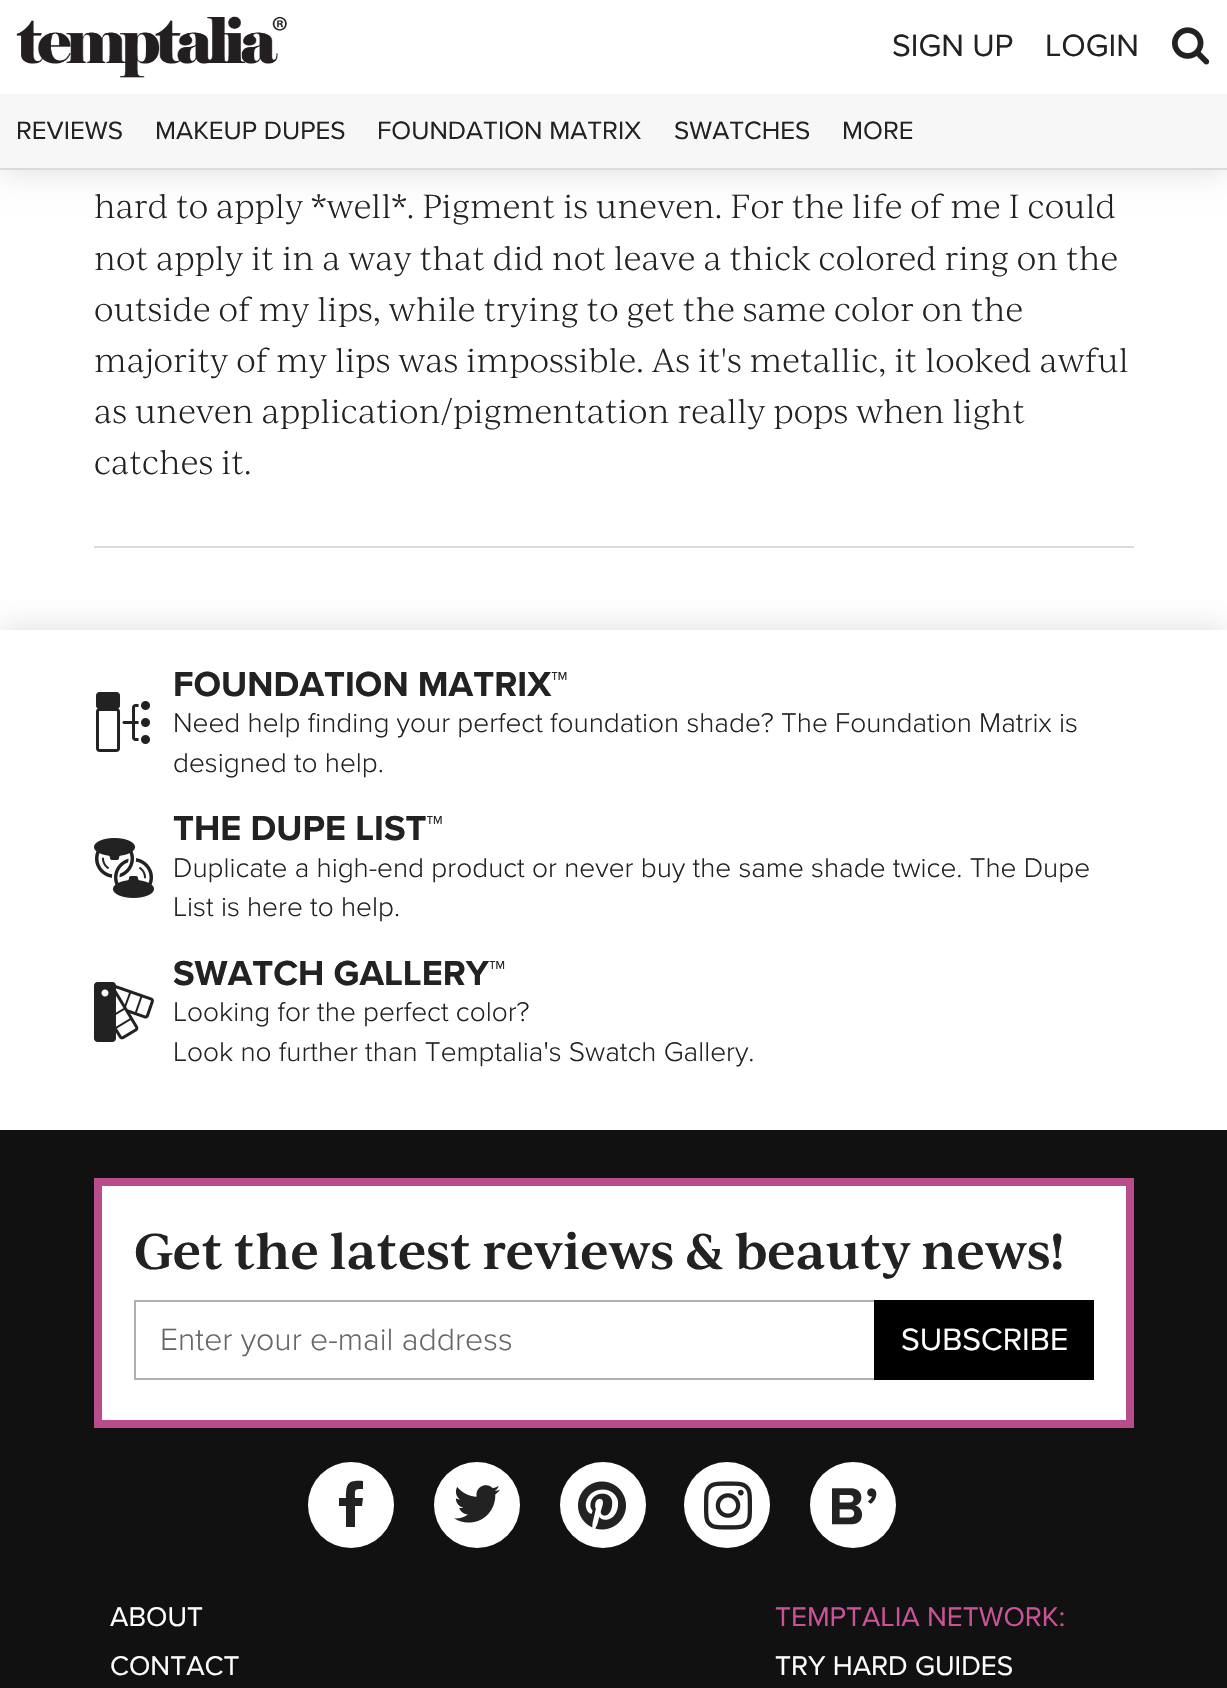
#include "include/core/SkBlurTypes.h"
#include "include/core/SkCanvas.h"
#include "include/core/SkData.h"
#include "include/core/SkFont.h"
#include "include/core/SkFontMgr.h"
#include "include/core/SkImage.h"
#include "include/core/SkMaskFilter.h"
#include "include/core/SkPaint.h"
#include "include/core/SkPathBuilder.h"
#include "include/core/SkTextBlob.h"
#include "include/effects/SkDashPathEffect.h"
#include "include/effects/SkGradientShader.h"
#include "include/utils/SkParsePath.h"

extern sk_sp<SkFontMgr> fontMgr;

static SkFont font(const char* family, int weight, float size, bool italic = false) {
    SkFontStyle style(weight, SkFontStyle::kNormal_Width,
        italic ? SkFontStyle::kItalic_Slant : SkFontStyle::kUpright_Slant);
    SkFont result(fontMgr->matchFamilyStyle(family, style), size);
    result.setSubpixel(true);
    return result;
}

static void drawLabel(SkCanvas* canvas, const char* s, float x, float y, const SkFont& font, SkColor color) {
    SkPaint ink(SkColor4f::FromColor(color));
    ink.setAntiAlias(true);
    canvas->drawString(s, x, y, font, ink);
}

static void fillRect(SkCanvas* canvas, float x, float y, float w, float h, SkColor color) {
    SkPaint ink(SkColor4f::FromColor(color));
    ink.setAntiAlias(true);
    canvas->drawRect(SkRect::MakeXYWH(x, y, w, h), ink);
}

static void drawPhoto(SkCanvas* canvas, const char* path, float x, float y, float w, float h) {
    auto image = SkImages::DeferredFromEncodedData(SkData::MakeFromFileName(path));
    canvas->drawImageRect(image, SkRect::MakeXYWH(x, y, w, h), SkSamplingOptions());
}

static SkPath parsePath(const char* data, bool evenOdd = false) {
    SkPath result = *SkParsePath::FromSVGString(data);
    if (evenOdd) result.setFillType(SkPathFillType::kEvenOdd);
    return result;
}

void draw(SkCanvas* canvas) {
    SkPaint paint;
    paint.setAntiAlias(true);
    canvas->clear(0xFFFFFFFF);
    paint.setColor(0xFFDDDDDD);
    paint.setMaskFilter(SkMaskFilter::MakeBlur(kNormal_SkBlurStyle, 16));
    canvas->drawRect(SkRect::MakeXYWH(0, 0, 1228, 170), paint);
    paint.setMaskFilter(nullptr);
    fillRect(canvas, 0, 0, 1227, 94, 0xFFFFFFFF);
    fillRect(canvas, 0, 168, 1227, 2, 0xFFDBDBDB);
    drawPhoto(canvas, "assets/img1.png", 16, 16, 271, 62);
    SkFont font1 = font("Proxima Nova", 400, 32);
    drawLabel(canvas, "SIGN UP", 892, 56, font1, 0xFF222222);
    drawLabel(canvas, "LOGIN", 1045, 56, font1, 0xFF222222);
    drawPhoto(canvas, "assets/img2.png", 1172, 27, 38, 38);
    fillRect(canvas, 0, 94, 1227, 74, 0xFFF7F7F7);
    SkFont font2 = font("Proxima Nova", 400, 26);
    drawLabel(canvas, "REVIEWS", 16, 139, font2, 0xFF222222);
    drawLabel(canvas, "MAKEUP DUPES", 155, 139, font2, 0xFF222222);
    drawLabel(canvas, "FOUNDATION MATRIX", 377, 139, font2, 0xFF222222);
    drawLabel(canvas, "SWATCHES", 674, 139, font2, 0xFF222222);
    drawLabel(canvas, "MORE", 842, 139, font2, 0xFF222222);
    fillRect(canvas, 94, 546, 1040, 2, 0xFFDBDBDB);
    SkFont font3 = font("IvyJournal", 300, 32);
    drawLabel(canvas, "hard to apply *well*. Pigment is uneven. For the life of me I could", 94, 218, font3, 0xFF222222);
    drawLabel(canvas, "not apply it in a way that did not leave a thick colored ring on the", 94, 270, font3, 0xFF222222);
    drawLabel(canvas, "outside of my lips, while trying to get the same color on the", 94, 321, font3, 0xFF222222);
    drawLabel(canvas, "majority of my lips was impossible. As it's metallic, it looked awful", 94, 372, font3, 0xFF222222);
    drawLabel(canvas, "as uneven application/pigmentation really pops when light", 94, 423, font3, 0xFF222222);
    drawLabel(canvas, "catches it.", 94, 474, font3, 0xFF222222);
    canvas->save();
    canvas->clipRect(SkRect::MakeXYWH(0, 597, 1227, 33));
    paint.setMaskFilter(SkMaskFilter::MakeBlur(kNormal_SkBlurStyle, 16));
    canvas->drawRect(SkRect::MakeXYWH(0, 630, 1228, 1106), paint);
    paint.setMaskFilter(nullptr);
    canvas->restore();
    drawPhoto(canvas, "assets/img3.png", 96, 692, 54, 60);
    SkFont font4 = font("Proxima Nova", 700, 36);
    drawLabel(canvas, "FOUNDATION MATRIX™", 173, 696, font4, 0xFF222222);
    SkFont font5 = font("Proxima Nova", 300, 28);
    drawLabel(canvas, "Need help finding your perfect foundation shade? The Foundation Matrix is", 173, 732, font5, 0xFF222222);
    drawLabel(canvas, "designed to help.", 173, 772, font5, 0xFF222222);
    drawPhoto(canvas, "assets/img4.png", 94, 838, 60, 60);
    drawLabel(canvas, "THE DUPE LIST™", 173, 840, font4, 0xFF222222);
    drawLabel(canvas, "Duplicate a high-end product or never buy the same shade twice. The Dupe", 173, 877, font5, 0xFF222222);
    drawLabel(canvas, "List is here to help.", 173, 916, font5, 0xFF222222);
    drawPhoto(canvas, "assets/img5.png", 94, 982, 60, 60);
    drawLabel(canvas, "SWATCH GALLERY™", 173, 985, font4, 0xFF222222);
    drawLabel(canvas, "Looking for the perfect color?", 173, 1021, font5, 0xFF222222);
    drawLabel(canvas, "Look no further than Temptalia's Swatch Gallery.", 173, 1061, font5, 0xFF222222);
    fillRect(canvas, 0, 1130, 1227, 558, 0xFF111111);
    paint.setColor(0xFFFFFFFF);
    canvas->drawRect(SkRect::MakeXYWH(98, 1182, 1032, 242), paint);
    paint.setStroke(true);
    paint.setStrokeWidth(8);
    paint.setColor(0xFFB94C8B);
    canvas->drawRect(SkRect::MakeXYWH(98, 1182, 1032, 242), paint);
    SkFont font6 = font("IvyJournal", 600, 48);
    drawLabel(canvas, "Get the latest reviews & beauty news!", 134, 1269, font6, 0xFF222222);
    paint.setStrokeWidth(2);
    paint.setColor(0xFFB0B0B0);
    canvas->drawRect(SkRect::MakeXYWH(135, 1301, 740, 78), paint);
    SkFont font7 = font("Proxima Nova", 300, 32);
    drawLabel(canvas, "Enter your e-mail address", 160, 1350, font7, 0xFF666666);
    fillRect(canvas, 874, 1300, 220, 80, 0xFF000000);
    drawLabel(canvas, "SUBSCRIBE", 901, 1350, font1, 0xFFFFFFFF);
    paint.setStroke(false);
    paint.setColor(0xFFFFFFFF);
    canvas->drawCircle(351, 1505, 43, paint);
    paint.setColor(0xFF222222);
    canvas->drawPath(parsePath("M363 1481V1489C354 1489 355 1489 355 1498H363L362 1506H355V1527H346V1506H339V1498H346C346 1483 348 1480 363 1481Z"), paint);
    paint.setColor(0xFFFFFFFF);
    canvas->drawCircle(477, 1505, 43, paint);
    drawPhoto(canvas, "assets/img6.png", 454, 1485, 46, 38);
    canvas->drawCircle(603, 1505, 43, paint);
    drawPhoto(canvas, "assets/img7.png", 578, 1481, 48, 49);
    canvas->drawCircle(727, 1505, 43, paint);
    drawPhoto(canvas, "assets/img8.png", 704, 1481, 48, 49);
    canvas->drawCircle(853, 1505, 43, paint);
    drawPhoto(canvas, "assets/img9.png", 832, 1488, 45, 37);
    SkFont font8 = font("Proxima Nova", 400, 28);
    drawLabel(canvas, "ABOUT", 110, 1626, font8, 0xFFFFFFFF);
    drawLabel(canvas, "CONTACT", 110, 1675, font8, 0xFFFFFFFF);
    drawLabel(canvas, "TEMPTALIA NETWORK:", 775, 1626, font8, 0xFFCB5298);
    drawLabel(canvas, "TRY HARD GUIDES", 775, 1675, font8, 0xFFFFFFFF);
}
